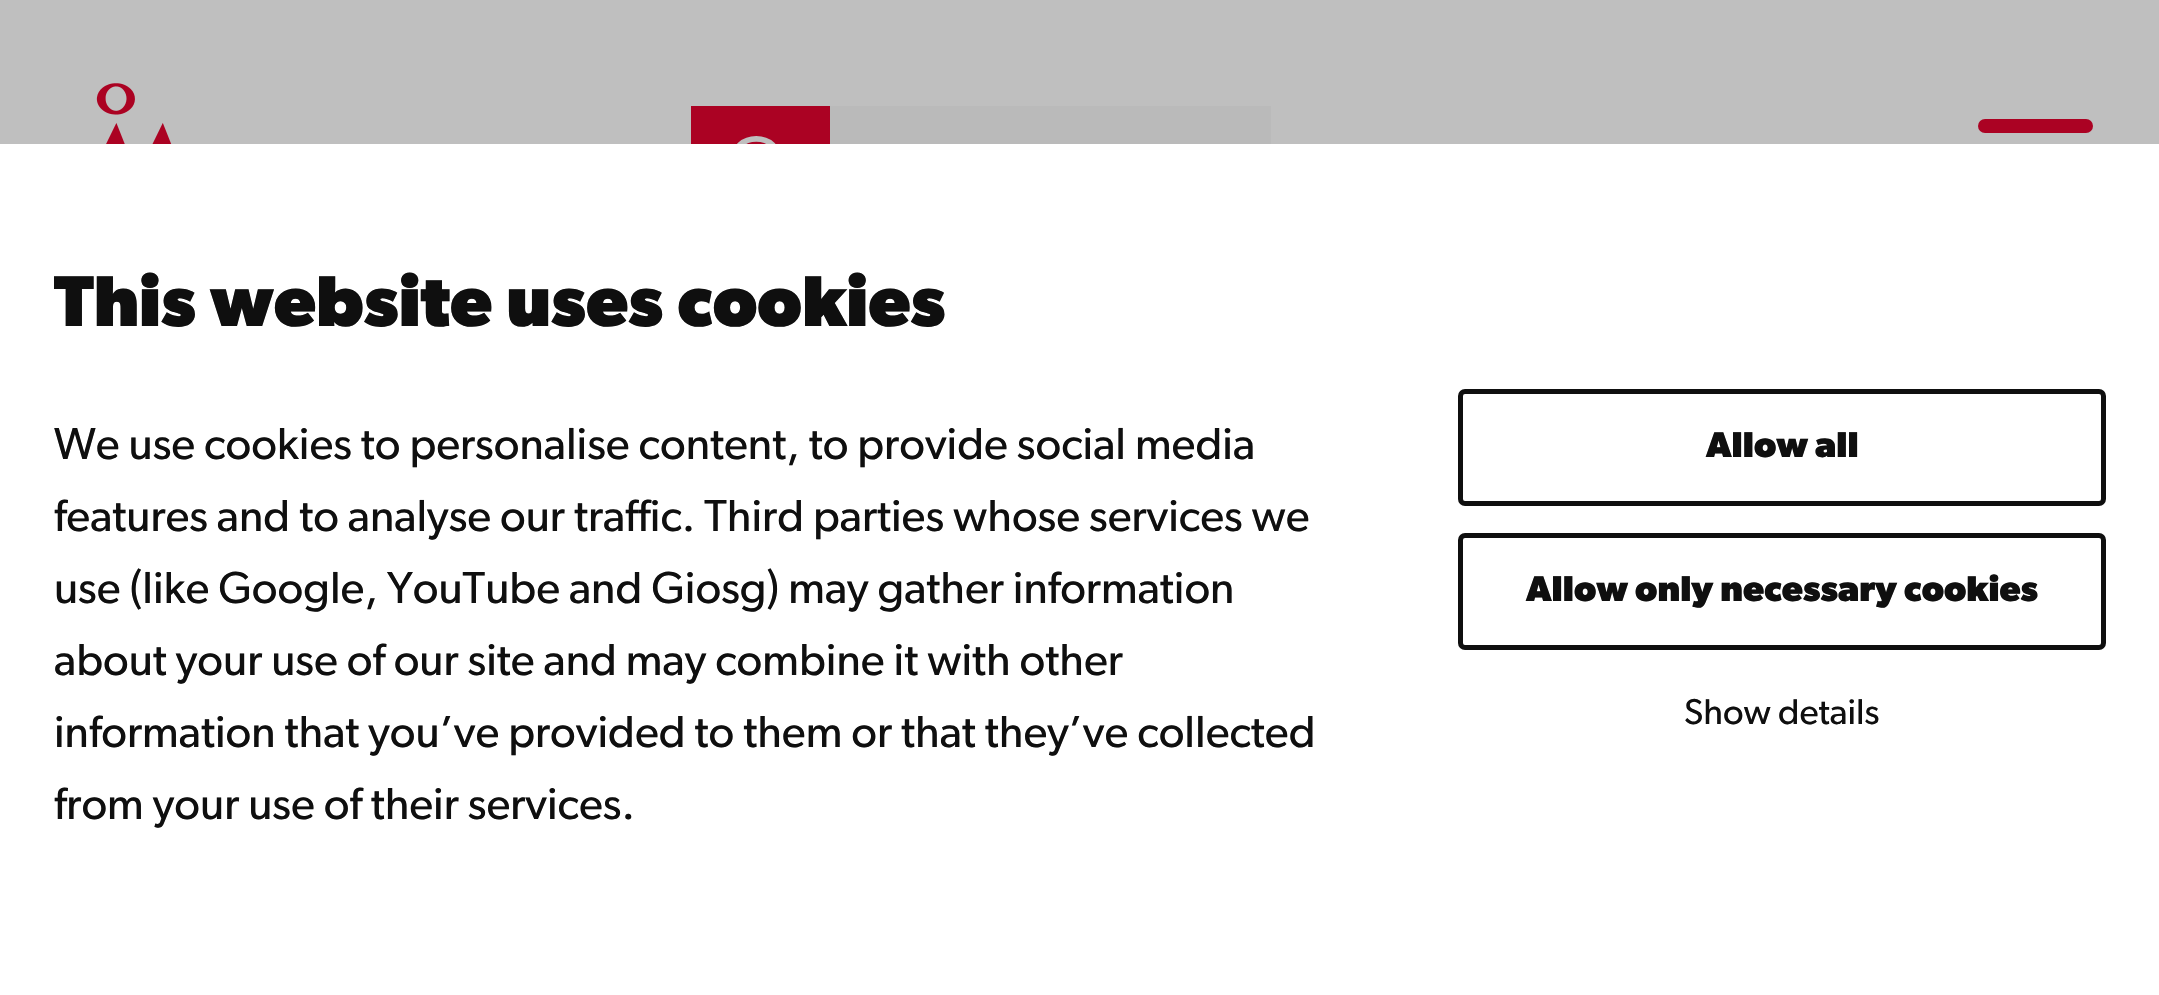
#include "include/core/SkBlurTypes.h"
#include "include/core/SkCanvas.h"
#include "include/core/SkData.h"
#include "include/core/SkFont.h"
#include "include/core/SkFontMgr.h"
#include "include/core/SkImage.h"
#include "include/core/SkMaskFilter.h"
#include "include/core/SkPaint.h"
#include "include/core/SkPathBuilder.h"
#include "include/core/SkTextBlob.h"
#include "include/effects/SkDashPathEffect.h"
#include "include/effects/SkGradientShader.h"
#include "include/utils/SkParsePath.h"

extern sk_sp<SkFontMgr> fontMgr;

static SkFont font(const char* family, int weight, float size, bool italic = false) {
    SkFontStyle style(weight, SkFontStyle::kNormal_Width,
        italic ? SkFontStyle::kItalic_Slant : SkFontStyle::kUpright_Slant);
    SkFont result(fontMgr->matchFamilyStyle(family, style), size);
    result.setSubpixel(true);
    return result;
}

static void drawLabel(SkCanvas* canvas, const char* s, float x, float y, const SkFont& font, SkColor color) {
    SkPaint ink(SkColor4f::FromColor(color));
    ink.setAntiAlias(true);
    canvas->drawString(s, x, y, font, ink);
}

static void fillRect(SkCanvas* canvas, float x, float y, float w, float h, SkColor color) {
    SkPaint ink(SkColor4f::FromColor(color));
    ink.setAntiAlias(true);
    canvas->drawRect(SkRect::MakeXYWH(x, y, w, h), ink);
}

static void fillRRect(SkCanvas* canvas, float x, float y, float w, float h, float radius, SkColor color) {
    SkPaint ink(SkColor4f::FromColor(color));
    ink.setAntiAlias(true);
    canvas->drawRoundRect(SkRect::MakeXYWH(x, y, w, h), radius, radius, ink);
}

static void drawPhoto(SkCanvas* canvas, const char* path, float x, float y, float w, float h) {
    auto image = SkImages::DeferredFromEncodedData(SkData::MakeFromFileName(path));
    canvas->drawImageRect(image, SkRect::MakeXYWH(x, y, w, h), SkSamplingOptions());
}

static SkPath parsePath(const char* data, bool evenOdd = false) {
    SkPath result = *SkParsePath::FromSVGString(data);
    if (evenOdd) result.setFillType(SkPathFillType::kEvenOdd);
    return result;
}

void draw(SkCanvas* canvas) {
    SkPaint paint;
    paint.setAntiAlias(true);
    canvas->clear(0xFFBFBFBF);
    drawPhoto(canvas, "assets/img1.png", 96, 83, 76, 61);
    fillRect(canvas, 691, 106, 139, 38, 0xFFAB0223);
    paint.setStroke(true);
    paint.setStrokeWidth(5.6f);
    paint.setStrokeCap(SkPaint::kRound_Cap);
    paint.setStrokeJoin(SkPaint::kRound_Join);
    paint.setColor(0xFFBFBFBF);
    canvas->drawPath(parsePath("M786 192L773 179ZM780 162.5C780 194 732.5 194 732.5 162.5C732.5 131 780 131 780 162.5Z"), paint);
    fillRect(canvas, 830, 106, 441, 38, 0xFFBABABA);
    paint.setStroke(false);
    paint.setColor(0xFFBABABA);
    canvas->drawPath(parsePath("M830 128H1226C1231 128 1235 132 1235 137V196C1235 201 1231 205 1226 205H830Z"), paint);
    fillRRect(canvas, 1978, 119, 115, 14, 7, 0xFFAB0223);
    fillRect(canvas, 0, 144, 2159, 851, 0xFFFFFFFF);
    SkFont font1 = font("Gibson", 700, 72);
    drawLabel(canvas, "This website uses cookies", 54, 326, font1, 0xFF0F0F0F);
    SkFont font2 = font("Gibson", 400, 45);
    drawLabel(canvas, "We use cookies to personalise content, to provide social media", 54, 459, font2, 0xFF0F0F0F);
    drawLabel(canvas, "features and to analyse our traffic. Third parties whose services we", 54, 531, font2, 0xFF0F0F0F);
    drawLabel(canvas, "use (like Google, YouTube and Giosg) may gather information", 54, 603, font2, 0xFF0F0F0F);
    drawLabel(canvas, "about your use of our site and may combine it with other", 54, 675, font2, 0xFF0F0F0F);
    drawLabel(canvas, "information that you’ve provided to them or that they’ve collected", 54, 747, font2, 0xFF0F0F0F);
    drawLabel(canvas, "from your use of their services.", 54, 819, font2, 0xFF0F0F0F);
    paint.setStroke(true);
    paint.setStrokeWidth(5);
    paint.setStrokeCap(SkPaint::kButt_Cap);
    paint.setStrokeJoin(SkPaint::kMiter_Join);
    paint.setColor(0xFF0F0F0F);
    canvas->drawRoundRect(SkRect::MakeXYWH(1460.5f, 391.5f, 643, 112), 4.5f, 4.5f, paint);
    SkFont font3 = font("Gibson", 700, 36);
    drawLabel(canvas, "Allow all", 1706, 457, font3, 0xFF0F0F0F);
    canvas->drawRoundRect(SkRect::MakeXYWH(1460.5f, 535.5f, 643, 112), 4.5f, 4.5f, paint);
    drawLabel(canvas, "Allow only necessary cookies", 1526, 601, font3, 0xFF0F0F0F);
    SkFont font4 = font("Gibson", 400, 36);
    drawLabel(canvas, "Show details", 1684, 724, font4, 0xFF0F0F0F);
}
